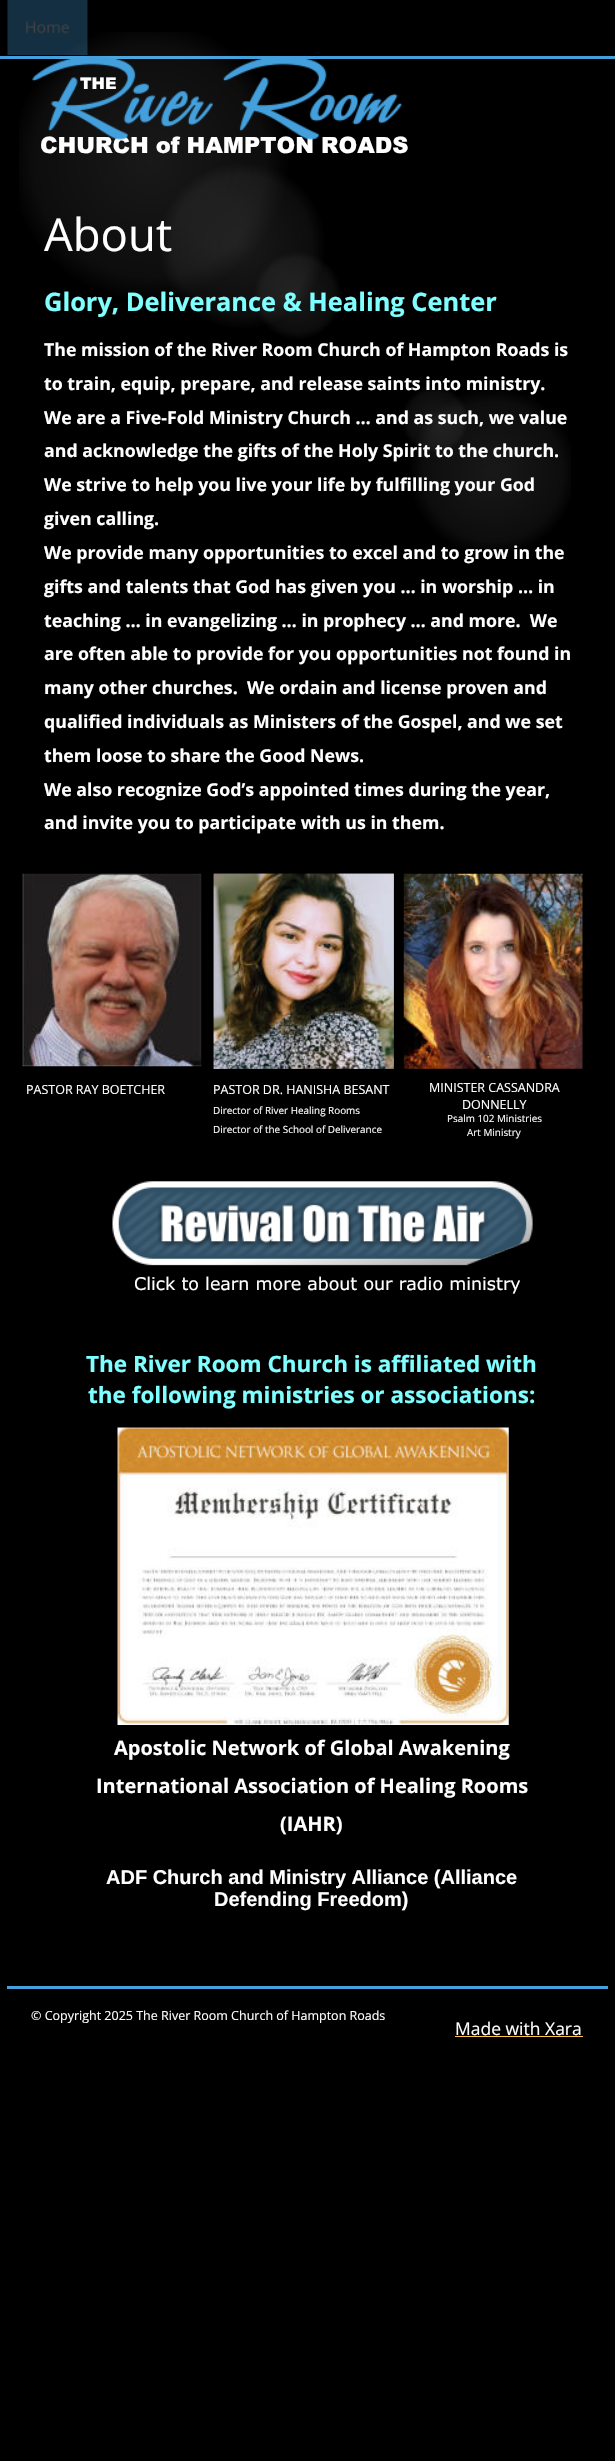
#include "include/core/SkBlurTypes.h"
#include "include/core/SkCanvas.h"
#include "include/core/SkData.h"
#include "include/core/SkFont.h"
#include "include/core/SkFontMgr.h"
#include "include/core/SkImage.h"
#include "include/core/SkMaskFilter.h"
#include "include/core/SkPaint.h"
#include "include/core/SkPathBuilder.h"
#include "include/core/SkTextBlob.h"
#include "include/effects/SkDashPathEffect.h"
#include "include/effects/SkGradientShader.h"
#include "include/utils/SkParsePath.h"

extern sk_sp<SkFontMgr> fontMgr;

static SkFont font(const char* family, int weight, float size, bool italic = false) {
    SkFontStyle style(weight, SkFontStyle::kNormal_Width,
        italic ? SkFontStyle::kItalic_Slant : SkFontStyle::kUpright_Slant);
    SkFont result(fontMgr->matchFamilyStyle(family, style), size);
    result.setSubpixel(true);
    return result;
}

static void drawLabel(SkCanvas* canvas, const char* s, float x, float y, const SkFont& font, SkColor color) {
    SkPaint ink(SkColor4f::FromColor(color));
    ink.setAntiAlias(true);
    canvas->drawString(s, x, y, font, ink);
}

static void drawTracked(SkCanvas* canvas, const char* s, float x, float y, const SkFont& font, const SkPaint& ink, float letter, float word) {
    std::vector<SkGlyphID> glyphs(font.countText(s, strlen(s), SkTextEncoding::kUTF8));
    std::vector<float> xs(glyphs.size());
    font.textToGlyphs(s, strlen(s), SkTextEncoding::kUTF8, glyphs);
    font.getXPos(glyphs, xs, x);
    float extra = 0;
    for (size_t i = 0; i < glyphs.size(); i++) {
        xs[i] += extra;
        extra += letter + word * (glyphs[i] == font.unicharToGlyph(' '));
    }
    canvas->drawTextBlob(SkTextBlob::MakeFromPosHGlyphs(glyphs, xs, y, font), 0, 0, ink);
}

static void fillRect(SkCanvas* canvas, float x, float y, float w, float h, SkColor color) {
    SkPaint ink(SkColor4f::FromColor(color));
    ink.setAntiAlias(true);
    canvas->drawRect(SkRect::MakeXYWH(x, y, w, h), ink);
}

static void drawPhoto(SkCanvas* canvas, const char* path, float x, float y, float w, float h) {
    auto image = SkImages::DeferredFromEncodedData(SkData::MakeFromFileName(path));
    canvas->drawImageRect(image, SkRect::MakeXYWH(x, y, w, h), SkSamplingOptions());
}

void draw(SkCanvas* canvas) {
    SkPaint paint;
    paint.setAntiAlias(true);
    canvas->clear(0xFF000000);
    fillRect(canvas, 0, 56, 615, 3, 0xFF44A0DC);
    drawPhoto(canvas, "assets/img2.png", 19, 32, 552, 517);
    drawPhoto(canvas, "assets/img1.png", 7, 0, 81, 55);
    SkFont font1 = font("Arial", 900, 22.5f);
    paint.setColor(0xFFFFFFFF);
    drawTracked(canvas, "CHURCH of HAMPTON ROADS", 40, 153, font1, paint, 0, -0.5f);
    drawPhoto(canvas, "assets/img3.png", 32, 56, 104, 84);
    drawPhoto(canvas, "assets/img4.png", 223, 59, 104, 81);
    SkFont font2 = font("Arial", 900, 16);
    drawLabel(canvas, "THE", 80, 89, font2, 0xFFFFFFFF);
    drawPhoto(canvas, "assets/img5.png", 123, 83, 90, 44);
    drawPhoto(canvas, "assets/img6.png", 309, 92, 93, 33);
    SkFont font3 = font("Open Sans", 400, 45.5f);
    drawLabel(canvas, "About", 44, 251, font3, 0xFFFFFFFF);
    SkFont font4 = font("Open Sans", 700, 25.4f);
    drawLabel(canvas, "Glory, Deliverance & Healing Center", 44, 311, font4, 0xFF7FFFFF);
    SkFont font5 = font("Open Sans", 700, 17.75f);
    drawLabel(canvas, "The mission of the River Room Church of Hampton Roads is", 44, 356, font5, 0xFFFFFFFF);
    drawLabel(canvas, "to train, equip, prepare, and release saints into ministry.", 44, 390, font5, 0xFFFFFFFF);
    drawLabel(canvas, "We are a Five-Fold Ministry Church … and as such, we value", 44, 424, font5, 0xFFFFFFFF);
    drawLabel(canvas, "and acknowledge the gifts of the Holy Spirit to the church.", 44, 457, font5, 0xFFFFFFFF);
    drawLabel(canvas, "We strive to help you live your life by fulfilling your God", 44, 491, font5, 0xFFFFFFFF);
    drawLabel(canvas, "given calling.", 44, 525, font5, 0xFFFFFFFF);
    drawLabel(canvas, "We provide many opportunities to excel and to grow in the", 44, 559, font5, 0xFFFFFFFF);
    drawLabel(canvas, "gifts and talents that God has given you … in worship … in", 44, 593, font5, 0xFFFFFFFF);
    drawLabel(canvas, "teaching … in evangelizing … in prophecy … and more.  We", 44, 627, font5, 0xFFFFFFFF);
    drawLabel(canvas, "are often able to provide for you opportunities not found in", 44, 660, font5, 0xFFFFFFFF);
    drawLabel(canvas, "many other churches.  We ordain and license proven and", 44, 694, font5, 0xFFFFFFFF);
    drawLabel(canvas, "qualified individuals as Ministers of the Gospel, and we set", 44, 728, font5, 0xFFFFFFFF);
    drawLabel(canvas, "them loose to share the Good News.", 44, 762, font5, 0xFFFFFFFF);
    drawLabel(canvas, "We also recognize God’s appointed times during the year,", 44, 796, font5, 0xFFFFFFFF);
    drawLabel(canvas, "and invite you to participate with us in them.", 44, 829, font5, 0xFFFFFFFF);
    drawPhoto(canvas, "assets/img7.png", 22, 873, 180, 194);
    drawPhoto(canvas, "assets/img10.png", 403, 873, 180, 196);
    paint.setColor(0x40000000);
    paint.setMaskFilter(SkMaskFilter::MakeBlur(kNormal_SkBlurStyle, 3));
    canvas->drawRect(SkRect::MakeXYWH(228, 884, 180, 195), paint);
    paint.setMaskFilter(nullptr);
    drawPhoto(canvas, "assets/img8.png", 213, 873, 181, 196);
    paint.setMaskFilter(SkMaskFilter::MakeBlur(kNormal_SkBlurStyle, 3));
    canvas->drawRect(SkRect::MakeXYWH(228, 884, 180, 195), paint);
    paint.setMaskFilter(nullptr);
    drawPhoto(canvas, "assets/img9.png", 213, 873, 181, 196);
    SkFont font6 = font("Open Sans", 400, 12.5f);
    drawLabel(canvas, "PASTOR RAY BOETCHER", 26, 1094, font6, 0xFFFFFFFF);
    drawLabel(canvas, "PASTOR DR. HANISHA BESANT", 213, 1094, font6, 0xFFFFFFFF);
    SkFont font7 = font("Open Sans", 400, 9.9f);
    drawLabel(canvas, "Director of River Healing Rooms", 213, 1114, font7, 0xFFFFFFFF);
    drawLabel(canvas, "Director of the School of Deliverance", 213, 1133, font7, 0xFFFFFFFF);
    drawLabel(canvas, "MINISTER CASSANDRA", 429, 1092, font6, 0xFFFFFFFF);
    drawLabel(canvas, "DONNELLY", 462, 1109, font6, 0xFFFFFFFF);
    drawLabel(canvas, "Psalm 102 Ministries", 447, 1122, font7, 0xFFFFFFFF);
    drawLabel(canvas, "Art Ministry", 467, 1136, font7, 0xFFFFFFFF);
    drawPhoto(canvas, "assets/img11.png", 112, 1181, 421, 85);
    drawPhoto(canvas, "assets/img12.png", 118, 1187, 409, 72);
    drawPhoto(canvas, "assets/img13.png", 123, 1191, 399, 65);
    drawPhoto(canvas, "assets/img14.png", 157, 1202, 332, 46);
    SkFont font8 = font("Verdana", 400, 17.5f);
    drawLabel(canvas, "Click to learn more about our radio ministry", 134, 1290, font8, 0xFFFFFFFF);
    SkFont font9 = font("Open Sans", 700, 22.5f);
    drawLabel(canvas, "The River Room Church is affiliated with", 86, 1372, font9, 0xFF7FFFFF);
    drawLabel(canvas, "the following ministries or associations:", 88, 1403, font9, 0xFF7FFFFF);
    SkFont font10 = font("Open Sans", 700, 20);
    drawLabel(canvas, "Apostolic Network of Global Awakening", 114, 1755, font10, 0xFFFFFFFF);
    drawLabel(canvas, "International Association of Healing Rooms", 96, 1793, font10, 0xFFFFFFFF);
    drawLabel(canvas, "(IAHR)", 280, 1831, font10, 0xFFFFFFFF);
    SkFont font11 = font("Liberation Sans", 700, 20);
    drawLabel(canvas, "ADF Church and Ministry Alliance (Alliance", 106, 1884, font11, 0xFFFFFFFF);
    drawLabel(canvas, "Defending Freedom)", 214, 1906, font11, 0xFFFFFFFF);
    drawPhoto(canvas, "assets/img15.png", 117, 1427, 392, 298);
    fillRect(canvas, 7, 1986, 601, 3, 0xFF44A0DC);
    drawLabel(canvas, "© Copyright 2025 The River Room Church of Hampton Roads", 31, 2020, font6, 0xFFFFFFFF);
    SkFont font12 = font("Open Sans", 400, 17.5f);
    drawLabel(canvas, "Made with Xara", 455, 2035, font12, 0xFFFFFFFF);
    fillRect(canvas, 455, 2036, 128, 1, 0xFFFFC742);
}
